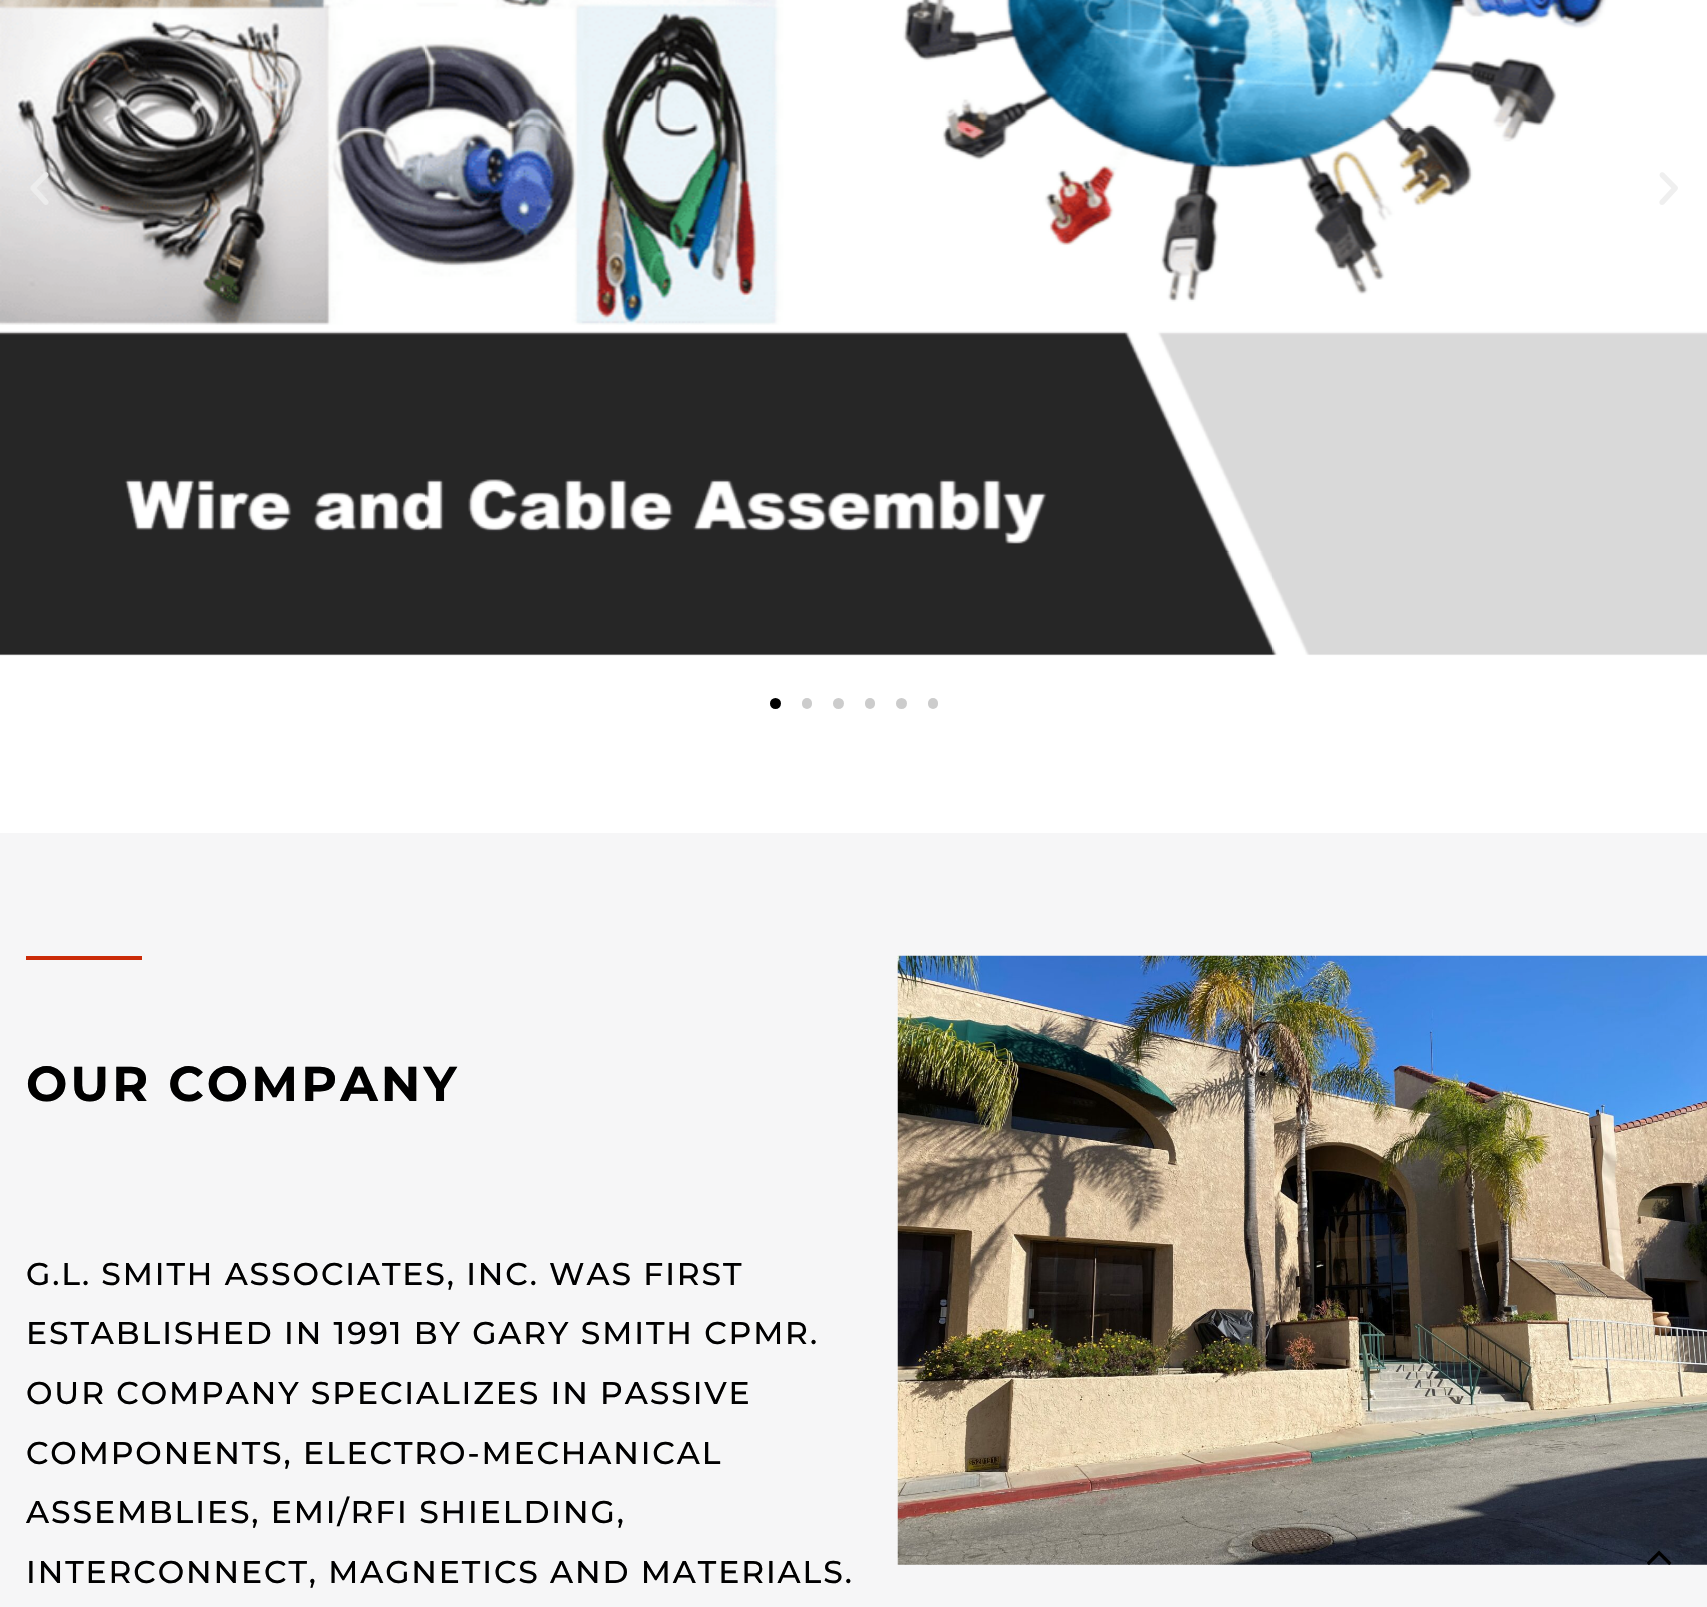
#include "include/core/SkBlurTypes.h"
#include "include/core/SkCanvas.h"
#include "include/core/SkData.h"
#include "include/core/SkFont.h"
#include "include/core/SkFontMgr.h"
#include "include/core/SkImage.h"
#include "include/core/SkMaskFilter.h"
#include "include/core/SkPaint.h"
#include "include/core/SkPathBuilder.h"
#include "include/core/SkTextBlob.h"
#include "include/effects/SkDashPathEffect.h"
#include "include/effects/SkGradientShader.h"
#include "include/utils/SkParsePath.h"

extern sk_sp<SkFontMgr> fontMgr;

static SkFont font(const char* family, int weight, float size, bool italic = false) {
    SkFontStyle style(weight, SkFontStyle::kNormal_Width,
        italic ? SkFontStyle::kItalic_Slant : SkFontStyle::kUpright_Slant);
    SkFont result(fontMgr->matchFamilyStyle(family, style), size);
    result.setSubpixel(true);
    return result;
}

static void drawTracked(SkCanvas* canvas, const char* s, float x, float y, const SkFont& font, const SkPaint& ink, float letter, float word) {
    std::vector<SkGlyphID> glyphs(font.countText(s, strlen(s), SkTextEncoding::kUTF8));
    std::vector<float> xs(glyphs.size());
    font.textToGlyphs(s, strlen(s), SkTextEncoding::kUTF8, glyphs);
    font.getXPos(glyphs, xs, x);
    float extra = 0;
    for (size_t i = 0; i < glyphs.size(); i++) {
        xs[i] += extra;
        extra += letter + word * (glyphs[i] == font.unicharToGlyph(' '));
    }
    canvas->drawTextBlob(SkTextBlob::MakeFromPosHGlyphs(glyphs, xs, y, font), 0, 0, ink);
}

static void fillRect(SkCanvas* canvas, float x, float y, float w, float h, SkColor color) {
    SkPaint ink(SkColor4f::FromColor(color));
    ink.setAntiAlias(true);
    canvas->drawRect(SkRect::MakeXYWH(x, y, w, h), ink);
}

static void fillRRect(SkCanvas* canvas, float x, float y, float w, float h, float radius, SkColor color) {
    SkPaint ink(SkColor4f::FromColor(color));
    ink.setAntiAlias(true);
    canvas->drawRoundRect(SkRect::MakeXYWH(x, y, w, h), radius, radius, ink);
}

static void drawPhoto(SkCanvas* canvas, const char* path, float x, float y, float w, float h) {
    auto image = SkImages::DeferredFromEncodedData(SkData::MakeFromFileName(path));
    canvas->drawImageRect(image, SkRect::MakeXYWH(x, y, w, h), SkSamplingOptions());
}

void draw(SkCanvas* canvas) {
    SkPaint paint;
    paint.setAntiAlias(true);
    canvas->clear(0xFFFFFFFF);
    drawPhoto(canvas, "assets/img1.png", 0, 0, 1707, 656);
    drawPhoto(canvas, "assets/img2.png", 30, 172, 19, 33);
    drawPhoto(canvas, "assets/img3.png", 1659, 172, 19, 33);
    paint.setColor(0xFF000000);
    canvas->drawCircle(775.5f, 703.5f, 5.5f, paint);
    fillRRect(canvas, 802, 698, 10, 11, 5, 0xFFCCCCCC);
    paint.setColor(0xFFCCCCCC);
    canvas->drawCircle(838.5f, 703.5f, 5.5f, paint);
    fillRRect(canvas, 865, 698, 10, 11, 5, 0xFFCCCCCC);
    canvas->drawCircle(901.5f, 703.5f, 5.5f, paint);
    fillRRect(canvas, 928, 698, 10, 11, 5, 0xFFCCCCCC);
    fillRect(canvas, 0, 833, 1707, 774, 0xFFF6F6F7);
    fillRect(canvas, 26, 956, 116, 4, 0xFFCB2B08);
    SkFont font1 = font("Montserrat", 700, 49);
    paint.setColor(0xFF000000);
    drawTracked(canvas, "OUR COMPANY", 26, 1101, font1, paint, 3.1f, 0);
    SkFont font2 = font("Montserrat", 500, 31.5f);
    drawTracked(canvas, "G.L. SMITH ASSOCIATES, INC. WAS FIRST", 26, 1285, font2, paint, 1.9f, 0);
    drawTracked(canvas, "ESTABLISHED IN 1991 BY GARY SMITH CPMR.", 26, 1344, font2, paint, 1.9f, 0);
    drawTracked(canvas, "OUR COMPANY SPECIALIZES IN PASSIVE", 26, 1404, font2, paint, 1.9f, 0);
    drawTracked(canvas, "COMPONENTS, ELECTRO-MECHANICAL", 26, 1464, font2, paint, 1.9f, 0);
    drawTracked(canvas, "ASSEMBLIES, EMI/RFI SHIELDING,", 26, 1523, font2, paint, 1.9f, 0);
    drawTracked(canvas, "INTERCONNECT, MAGNETICS AND MATERIALS.", 26, 1583, font2, paint, 1.9f, 0);
    drawPhoto(canvas, "assets/img4.png", 897, 955, 810, 610);
    drawPhoto(canvas, "assets/img5.png", 1647, 1550, 25, 15);
}
